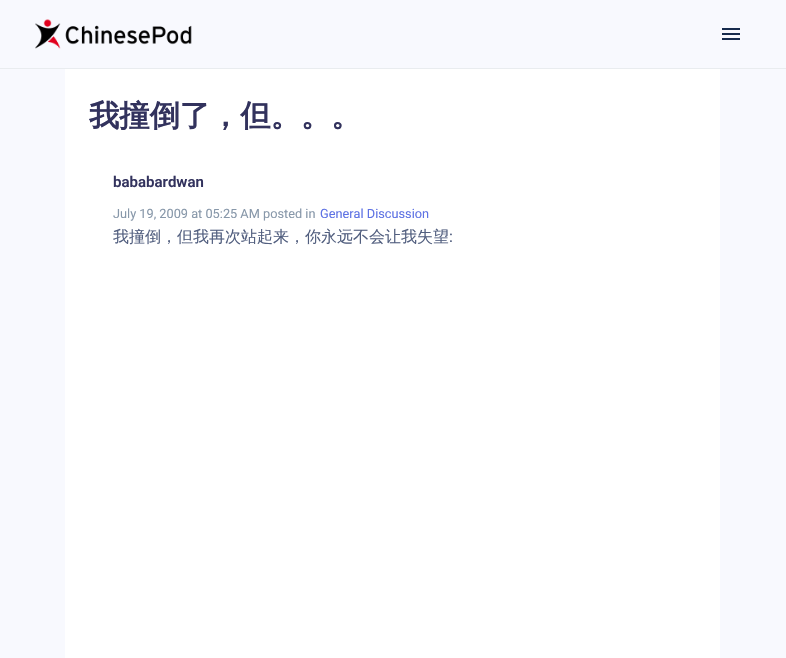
#include "include/core/SkBlurTypes.h"
#include "include/core/SkCanvas.h"
#include "include/core/SkData.h"
#include "include/core/SkFont.h"
#include "include/core/SkFontMgr.h"
#include "include/core/SkImage.h"
#include "include/core/SkMaskFilter.h"
#include "include/core/SkPaint.h"
#include "include/core/SkPathBuilder.h"
#include "include/core/SkTextBlob.h"
#include "include/effects/SkDashPathEffect.h"
#include "include/effects/SkGradientShader.h"
#include "include/utils/SkParsePath.h"

extern sk_sp<SkFontMgr> fontMgr;

static SkFont font(const char* family, int weight, float size, bool italic = false) {
    SkFontStyle style(weight, SkFontStyle::kNormal_Width,
        italic ? SkFontStyle::kItalic_Slant : SkFontStyle::kUpright_Slant);
    SkFont result(fontMgr->matchFamilyStyle(family, style), size);
    result.setSubpixel(true);
    return result;
}

static void drawLabel(SkCanvas* canvas, const char* s, float x, float y, const SkFont& font, SkColor color) {
    SkPaint ink(SkColor4f::FromColor(color));
    ink.setAntiAlias(true);
    canvas->drawString(s, x, y, font, ink);
}

static void fillRect(SkCanvas* canvas, float x, float y, float w, float h, SkColor color) {
    SkPaint ink(SkColor4f::FromColor(color));
    ink.setAntiAlias(true);
    canvas->drawRect(SkRect::MakeXYWH(x, y, w, h), ink);
}

static void drawPhoto(SkCanvas* canvas, const char* path, float x, float y, float w, float h) {
    auto image = SkImages::DeferredFromEncodedData(SkData::MakeFromFileName(path));
    canvas->drawImageRect(image, SkRect::MakeXYWH(x, y, w, h), SkSamplingOptions());
}

void draw(SkCanvas* canvas) {
    SkPaint paint;
    paint.setAntiAlias(true);
    canvas->clear(0xFFF8F9FE);
    fillRect(canvas, 0, 68, 786, 1, 0xFFE9ECEF);
    drawPhoto(canvas, "assets/img1.png", 35, 19, 157, 30);
    fillRect(canvas, 722, 28, 18, 2, 0xFF172B4D);
    fillRect(canvas, 722, 33, 18, 2, 0xFF172B4D);
    fillRect(canvas, 722, 38, 18, 2, 0xFF172B4D);
    fillRect(canvas, 65, 69, 655, 589, 0xFFFFFFFF);
    SkFont font1 = font("WenQuanYi Zen Hei", 700, 30.25f);
    drawLabel(canvas, "我撞倒了，但。。。", 89, 126, font1, 0xFF32325D);
    SkFont font2 = font("Roboto", 600, 15);
    drawLabel(canvas, "bababardwan", 113, 187, font2, 0xFF32325D);
    SkFont font3 = font("Roboto", 400, 12.75f);
    drawLabel(canvas, "July 19, 2009 at 05:25 AM posted in", 113, 218, font3, 0xFF8898AA);
    drawLabel(canvas, "General Discussion", 320, 218, font3, 0xFF5E72E4);
    SkFont font4 = font("WenQuanYi Zen Hei", 500, 16);
    drawLabel(canvas, "我撞倒，但我再次站起来，你永远不会让我失望", 113, 242, font4, 0xFF525F7F);
    SkFont font5 = font("Roboto", 400, 16);
    drawLabel(canvas, ":", 449, 242, font5, 0xFF525F7F);
}
